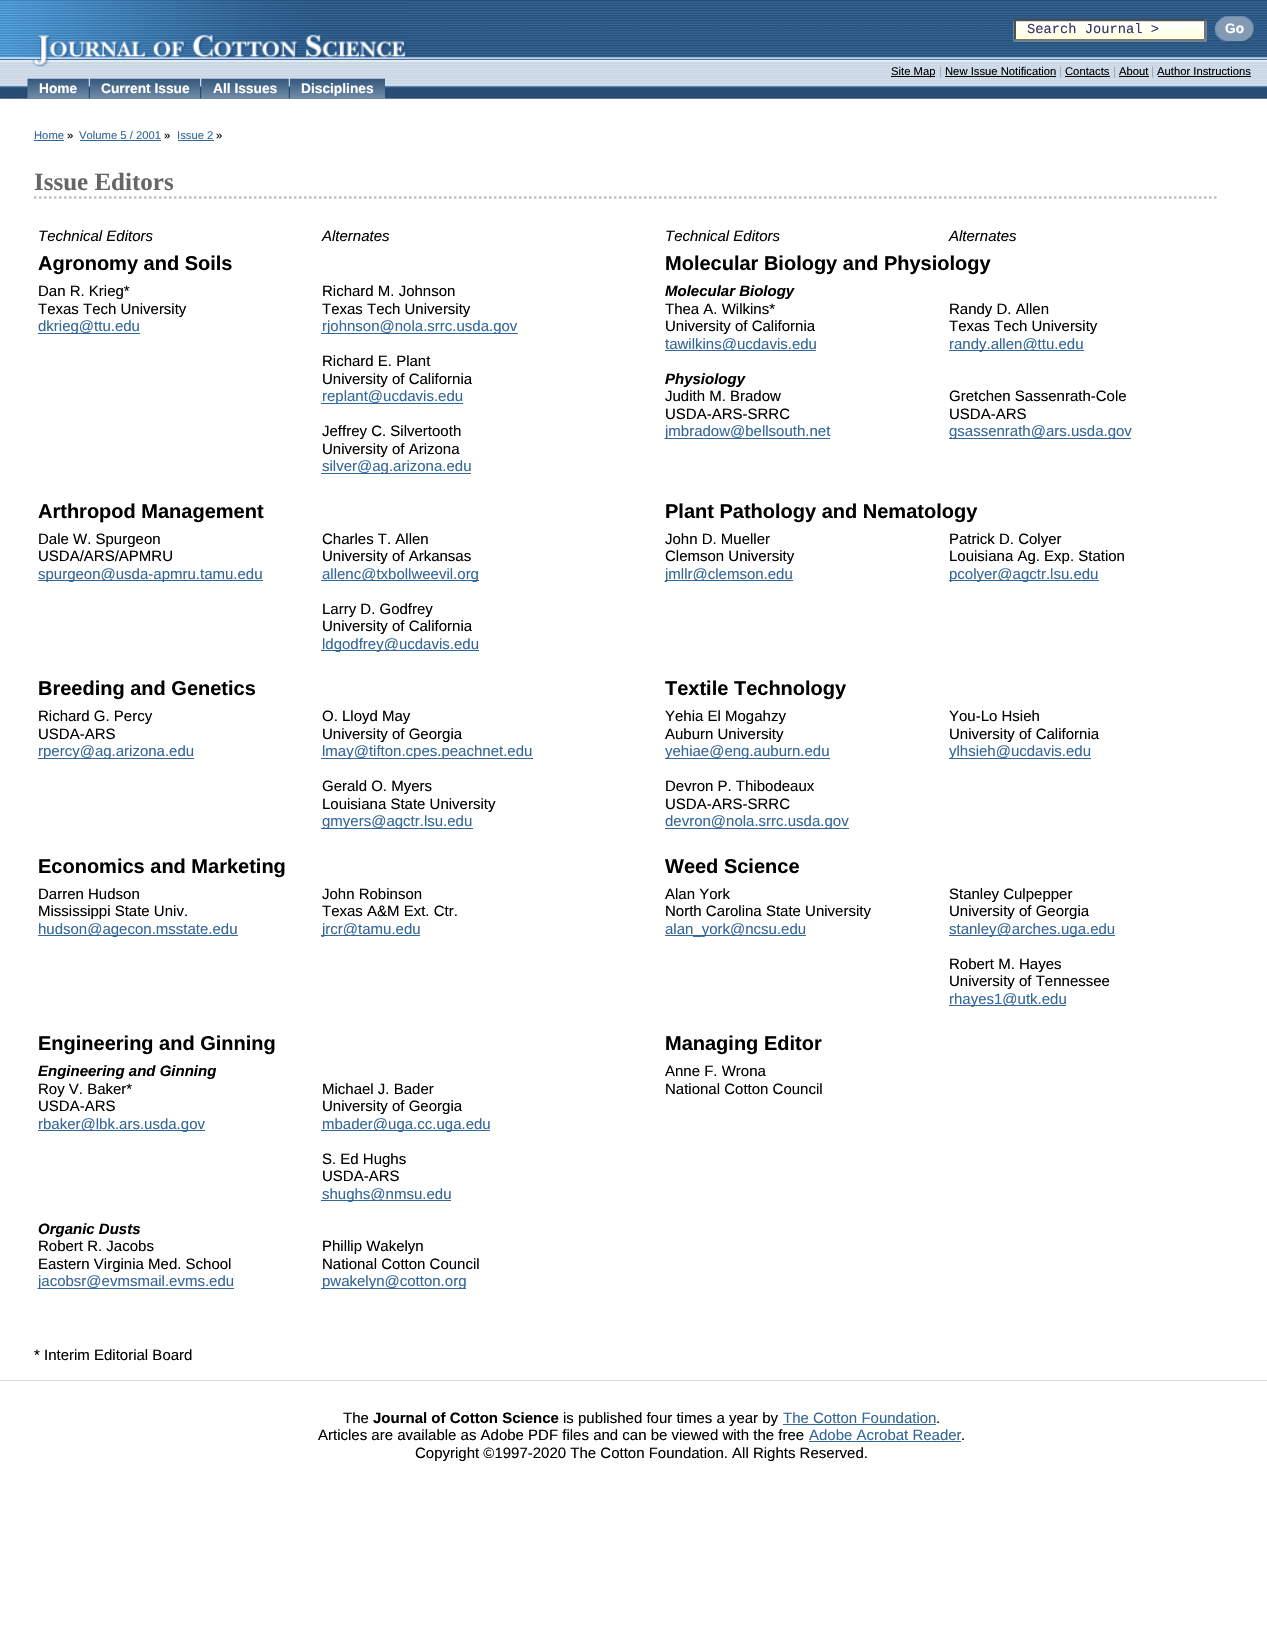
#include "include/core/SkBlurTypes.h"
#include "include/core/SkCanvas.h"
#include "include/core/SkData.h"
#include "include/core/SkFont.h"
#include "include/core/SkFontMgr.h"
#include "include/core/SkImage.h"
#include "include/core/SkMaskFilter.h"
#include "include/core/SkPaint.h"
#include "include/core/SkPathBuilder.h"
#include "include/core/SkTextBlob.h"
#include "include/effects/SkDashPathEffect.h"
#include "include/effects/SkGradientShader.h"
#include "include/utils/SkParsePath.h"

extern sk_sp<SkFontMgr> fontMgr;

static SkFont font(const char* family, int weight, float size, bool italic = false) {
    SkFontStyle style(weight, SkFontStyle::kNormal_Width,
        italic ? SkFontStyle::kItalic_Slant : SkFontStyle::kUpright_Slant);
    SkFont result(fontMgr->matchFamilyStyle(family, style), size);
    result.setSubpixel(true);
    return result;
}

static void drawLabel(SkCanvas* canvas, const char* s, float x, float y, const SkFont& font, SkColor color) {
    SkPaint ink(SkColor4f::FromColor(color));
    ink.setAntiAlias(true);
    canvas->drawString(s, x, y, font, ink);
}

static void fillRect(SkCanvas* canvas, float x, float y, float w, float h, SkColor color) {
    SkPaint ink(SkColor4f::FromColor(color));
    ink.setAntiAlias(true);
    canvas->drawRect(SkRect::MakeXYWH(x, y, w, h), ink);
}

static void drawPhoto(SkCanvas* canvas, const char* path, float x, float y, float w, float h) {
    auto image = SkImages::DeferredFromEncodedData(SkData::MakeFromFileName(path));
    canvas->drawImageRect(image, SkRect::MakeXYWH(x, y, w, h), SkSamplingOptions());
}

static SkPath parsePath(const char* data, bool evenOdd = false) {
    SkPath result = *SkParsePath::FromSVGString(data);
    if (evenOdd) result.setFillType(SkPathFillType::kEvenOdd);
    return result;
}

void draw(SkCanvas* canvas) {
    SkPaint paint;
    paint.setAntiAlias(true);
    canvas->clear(0xFFFFFFFF);
    drawPhoto(canvas, "assets/img1.png", 0, 0, 1267, 99);
    drawPhoto(canvas, "assets/img2.png", 1013, 21, 194, 21);
    paint.setColor(0xFF4F4F4F);
    canvas->drawPath(parsePath("M1014 19H1206L1204 21H1016Z"), paint);
    paint.setColor(0xFF767676);
    canvas->drawPath(parsePath("M1206 19V41L1204 39V21Z"), paint);
    canvas->drawPath(parsePath("M1206 41H1014L1016 39H1204Z"), paint);
    paint.setColor(0xFF4F4F4F);
    canvas->drawPath(parsePath("M1014 41V19L1016 21V39Z"), paint);
    SkFont font1 = font("Liberation Mono", 400, 13.75f);
    drawLabel(canvas, "Search Journal >", 1027, 33, font1, 0xFF333366);
    drawPhoto(canvas, "assets/img3.png", 1215, 16, 40, 27);
    SkFont font2 = font("Liberation Sans", 700, 13.75f);
    drawLabel(canvas, "Go", 1225, 33, font2, 0xFFFFFFFF);
    fillRect(canvas, 891, 76, 44, 1, 0xFF000000);
    SkFont font3 = font("Liberation Sans", 400, 11.25f);
    drawLabel(canvas, "Site Map", 891, 75, font3, 0xFF000000);
    SkFont font4 = font("Liberation Sans", 400, 11.25f, true);
    drawLabel(canvas, "|", 939, 75, font4, 0xFF9EA9B5);
    drawLabel(canvas, "New Issue Notification", 945, 75, font3, 0xFF000000);
    fillRect(canvas, 945, 76, 111, 1, 0xFF000000);
    drawLabel(canvas, "|", 1059, 75, font4, 0xFF9EA9B5);
    drawLabel(canvas, "Contacts", 1065, 75, font3, 0xFF000000);
    fillRect(canvas, 1065, 76, 45, 1, 0xFF000000);
    drawLabel(canvas, "|", 1113, 75, font4, 0xFF9EA9B5);
    drawLabel(canvas, "About", 1119, 75, font3, 0xFF000000);
    fillRect(canvas, 1119, 76, 30, 1, 0xFF000000);
    drawLabel(canvas, "|", 1151, 75, font4, 0xFF9EA9B5);
    drawLabel(canvas, "Author Instructions", 1157, 75, font3, 0xFF000000);
    fillRect(canvas, 1158, 76, 93, 1, 0xFF000000);
    drawPhoto(canvas, "assets/img4.png", 0, 0, 408, 67);
    drawPhoto(canvas, "assets/img5.png", 27, 78, 62, 21);
    drawLabel(canvas, "Home", 39, 93, font2, 0xFFFFFFFF);
    drawPhoto(canvas, "assets/img6.png", 90, 78, 110, 21);
    drawLabel(canvas, "Current Issue", 101, 93, font2, 0xFFFFFFFF);
    drawPhoto(canvas, "assets/img7.png", 201, 78, 88, 21);
    drawLabel(canvas, "All Issues", 213, 93, font2, 0xFFFFFFFF);
    drawPhoto(canvas, "assets/img8.png", 290, 78, 95, 21);
    drawLabel(canvas, "Disciplines", 301, 93, font2, 0xFFFFFFFF);
    drawLabel(canvas, "Home", 34, 139, font3, 0xFF336699);
    fillRect(canvas, 34, 140, 30, 1, 0xFF336699);
    drawLabel(canvas, "»", 67, 139, font3, 0xFF000000);
    drawLabel(canvas, "Volume 5 / 2001", 79, 139, font3, 0xFF336699);
    fillRect(canvas, 80, 140, 81, 1, 0xFF336699);
    drawLabel(canvas, "»", 164, 139, font3, 0xFF000000);
    drawLabel(canvas, "Issue 2", 177, 139, font3, 0xFF336699);
    fillRect(canvas, 178, 140, 36, 1, 0xFF336699);
    drawLabel(canvas, "»", 216, 139, font3, 0xFF000000);
    paint.setStroke(true);
    paint.setStrokeWidth(2.5f);
    paint.setColor(0xFFC0C0C0);
    paint.setPathEffect(SkDashPathEffect::Make({{2.5f, 2.5f}}, 0));
    canvas->drawPath(parsePath("M34 197.5H1217.5"), paint);
    paint.setPathEffect(nullptr);
    SkFont font5 = font("Liberation Serif", 700, 25);
    drawLabel(canvas, "Issue Editors", 34, 190, font5, 0xFF666666);
    SkFont font6 = font("Liberation Sans", 400, 15, true);
    drawLabel(canvas, "Technical Editors", 38, 241, font6, 0xFF000000);
    drawLabel(canvas, "Alternates", 322, 241, font6, 0xFF000000);
    drawLabel(canvas, "Technical Editors", 665, 241, font6, 0xFF000000);
    drawLabel(canvas, "Alternates", 949, 241, font6, 0xFF000000);
    SkFont font7 = font("Liberation Sans", 700, 20);
    drawLabel(canvas, "Agronomy and Soils", 38, 270, font7, 0xFF000000);
    drawLabel(canvas, "Molecular Biology and Physiology", 665, 270, font7, 0xFF000000);
    SkFont font8 = font("Liberation Sans", 400, 15);
    drawLabel(canvas, "Dan R. Krieg*", 38, 296, font8, 0xFF000000);
    drawLabel(canvas, "Texas Tech University", 38, 314, font8, 0xFF000000);
    fillRect(canvas, 38, 333, 102, 1, 0xFF336699);
    drawLabel(canvas, "dkrieg@ttu.edu", 38, 331, font8, 0xFF336699);
    drawLabel(canvas, "Richard M. Johnson", 322, 296, font8, 0xFF000000);
    drawLabel(canvas, "Texas Tech University", 322, 314, font8, 0xFF000000);
    fillRect(canvas, 321, 333, 197, 1, 0xFF336699);
    drawLabel(canvas, "rjohnson@nola.srrc.usda.gov", 322, 331, font8, 0xFF336699);
    drawLabel(canvas, "Richard E. Plant", 322, 366, font8, 0xFF000000);
    drawLabel(canvas, "University of California", 322, 384, font8, 0xFF000000);
    fillRect(canvas, 321, 403, 142, 1, 0xFF336699);
    drawLabel(canvas, "replant@ucdavis.edu", 322, 401, font8, 0xFF336699);
    drawLabel(canvas, "Jeffrey C. Silvertooth", 322, 436, font8, 0xFF000000);
    drawLabel(canvas, "University of Arizona", 322, 454, font8, 0xFF000000);
    fillRect(canvas, 321, 473, 150, 1, 0xFF336699);
    drawLabel(canvas, "silver@ag.arizona.edu", 322, 471, font8, 0xFF336699);
    SkFont font9 = font("Liberation Sans", 700, 15, true);
    drawLabel(canvas, "Molecular Biology", 665, 296, font9, 0xFF000000);
    drawLabel(canvas, "Thea A. Wilkins*", 665, 314, font8, 0xFF000000);
    drawLabel(canvas, "University of California", 665, 331, font8, 0xFF000000);
    fillRect(canvas, 665, 350, 151, 1, 0xFF336699);
    drawLabel(canvas, "tawilkins@ucdavis.edu", 665, 349, font8, 0xFF336699);
    drawLabel(canvas, "Physiology", 665, 384, font9, 0xFF000000);
    drawLabel(canvas, "Judith M. Bradow", 665, 401, font8, 0xFF000000);
    drawLabel(canvas, "USDA-ARS-SRRC", 665, 419, font8, 0xFF000000);
    fillRect(canvas, 665, 438, 165, 1, 0xFF336699);
    drawLabel(canvas, "jmbradow@bellsouth.net", 665, 436, font8, 0xFF336699);
    drawLabel(canvas, "Randy D. Allen", 949, 314, font8, 0xFF000000);
    drawLabel(canvas, "Texas Tech University", 949, 331, font8, 0xFF000000);
    fillRect(canvas, 949, 350, 135, 1, 0xFF336699);
    drawLabel(canvas, "randy.allen@ttu.edu", 949, 349, font8, 0xFF336699);
    drawLabel(canvas, "Gretchen Sassenrath-Cole", 949, 401, font8, 0xFF000000);
    drawLabel(canvas, "USDA-ARS", 949, 419, font8, 0xFF000000);
    fillRect(canvas, 949, 438, 182, 1, 0xFF336699);
    drawLabel(canvas, "gsassenrath@ars.usda.gov", 949, 436, font8, 0xFF336699);
    drawLabel(canvas, "Arthropod Management", 38, 518, font7, 0xFF000000);
    drawLabel(canvas, "Plant Pathology and Nematology", 665, 518, font7, 0xFF000000);
    drawLabel(canvas, "Dale W. Spurgeon", 38, 544, font8, 0xFF000000);
    drawLabel(canvas, "USDA/ARS/APMRU", 38, 561, font8, 0xFF000000);
    fillRect(canvas, 38, 580, 225, 1, 0xFF336699);
    drawLabel(canvas, "spurgeon@usda-apmru.tamu.edu", 38, 579, font8, 0xFF336699);
    drawLabel(canvas, "Charles T. Allen", 322, 544, font8, 0xFF000000);
    drawLabel(canvas, "University of Arkansas", 322, 561, font8, 0xFF000000);
    fillRect(canvas, 321, 580, 158, 1, 0xFF336699);
    drawLabel(canvas, "allenc@txbollweevil.org", 322, 579, font8, 0xFF336699);
    drawLabel(canvas, "Larry D. Godfrey", 322, 614, font8, 0xFF000000);
    drawLabel(canvas, "University of California", 322, 631, font8, 0xFF000000);
    fillRect(canvas, 321, 650, 158, 1, 0xFF336699);
    drawLabel(canvas, "ldgodfrey@ucdavis.edu", 322, 649, font8, 0xFF336699);
    drawLabel(canvas, "John D. Mueller", 665, 544, font8, 0xFF000000);
    drawLabel(canvas, "Clemson University", 665, 561, font8, 0xFF000000);
    fillRect(canvas, 665, 580, 128, 1, 0xFF336699);
    drawLabel(canvas, "jmllr@clemson.edu", 665, 579, font8, 0xFF336699);
    drawLabel(canvas, "Patrick D. Colyer", 949, 544, font8, 0xFF000000);
    drawLabel(canvas, "Louisiana Ag. Exp. Station", 949, 561, font8, 0xFF000000);
    fillRect(canvas, 949, 580, 150, 1, 0xFF336699);
    drawLabel(canvas, "pcolyer@agctr.lsu.edu", 949, 579, font8, 0xFF336699);
    drawLabel(canvas, "Breeding and Genetics", 38, 695, font7, 0xFF000000);
    drawLabel(canvas, "Textile Technology", 665, 695, font7, 0xFF000000);
    drawLabel(canvas, "Richard G. Percy", 38, 721, font8, 0xFF000000);
    drawLabel(canvas, "USDA-ARS", 38, 739, font8, 0xFF000000);
    fillRect(canvas, 38, 758, 156, 1, 0xFF336699);
    drawLabel(canvas, "rpercy@ag.arizona.edu", 38, 756, font8, 0xFF336699);
    drawLabel(canvas, "O. Lloyd May", 322, 721, font8, 0xFF000000);
    drawLabel(canvas, "University of Georgia", 322, 739, font8, 0xFF000000);
    fillRect(canvas, 321, 758, 212, 1, 0xFF336699);
    drawLabel(canvas, "lmay@tifton.cpes.peachnet.edu", 322, 756, font8, 0xFF336699);
    drawLabel(canvas, "Gerald O. Myers", 322, 791, font8, 0xFF000000);
    drawLabel(canvas, "Louisiana State University", 322, 809, font8, 0xFF000000);
    fillRect(canvas, 321, 828, 152, 1, 0xFF336699);
    drawLabel(canvas, "gmyers@agctr.lsu.edu", 322, 826, font8, 0xFF336699);
    drawLabel(canvas, "Yehia El Mogahzy", 665, 721, font8, 0xFF000000);
    drawLabel(canvas, "Auburn University", 665, 739, font8, 0xFF000000);
    fillRect(canvas, 665, 758, 165, 1, 0xFF336699);
    drawLabel(canvas, "yehiae@eng.auburn.edu", 665, 756, font8, 0xFF336699);
    drawLabel(canvas, "Devron P. Thibodeaux", 665, 791, font8, 0xFF000000);
    drawLabel(canvas, "USDA-ARS-SRRC", 665, 809, font8, 0xFF000000);
    fillRect(canvas, 665, 828, 184, 1, 0xFF336699);
    drawLabel(canvas, "devron@nola.srrc.usda.gov", 665, 826, font8, 0xFF336699);
    drawLabel(canvas, "You-Lo Hsieh", 949, 721, font8, 0xFF000000);
    drawLabel(canvas, "University of California", 949, 739, font8, 0xFF000000);
    fillRect(canvas, 949, 758, 142, 1, 0xFF336699);
    drawLabel(canvas, "ylhsieh@ucdavis.edu", 949, 756, font8, 0xFF336699);
    drawLabel(canvas, "Economics and Marketing", 38, 873, font7, 0xFF000000);
    drawLabel(canvas, "Weed Science", 665, 873, font7, 0xFF000000);
    drawLabel(canvas, "Darren Hudson", 38, 899, font8, 0xFF000000);
    drawLabel(canvas, "Mississippi State Univ.", 38, 916, font8, 0xFF000000);
    fillRect(canvas, 38, 935, 200, 1, 0xFF336699);
    drawLabel(canvas, "hudson@agecon.msstate.edu", 38, 934, font8, 0xFF336699);
    drawLabel(canvas, "John Robinson", 322, 899, font8, 0xFF000000);
    drawLabel(canvas, "Texas A&M Ext. Ctr.", 322, 916, font8, 0xFF000000);
    fillRect(canvas, 321, 935, 99, 1, 0xFF336699);
    drawLabel(canvas, "jrcr@tamu.edu", 322, 934, font8, 0xFF336699);
    drawLabel(canvas, "Alan York", 665, 899, font8, 0xFF000000);
    drawLabel(canvas, "North Carolina State University", 665, 916, font8, 0xFF000000);
    fillRect(canvas, 665, 935, 141, 1, 0xFF336699);
    drawLabel(canvas, "alan_york@ncsu.edu", 665, 934, font8, 0xFF336699);
    drawLabel(canvas, "Stanley Culpepper", 949, 899, font8, 0xFF000000);
    drawLabel(canvas, "University of Georgia", 949, 916, font8, 0xFF000000);
    fillRect(canvas, 949, 935, 166, 1, 0xFF336699);
    drawLabel(canvas, "stanley@arches.uga.edu", 949, 934, font8, 0xFF336699);
    drawLabel(canvas, "Robert M. Hayes", 949, 969, font8, 0xFF000000);
    drawLabel(canvas, "University of Tennessee", 949, 986, font8, 0xFF000000);
    fillRect(canvas, 949, 1005, 117, 1, 0xFF336699);
    drawLabel(canvas, "rhayes1@utk.edu", 949, 1004, font8, 0xFF336699);
    drawLabel(canvas, "Engineering and Ginning", 38, 1050, font7, 0xFF000000);
    drawLabel(canvas, "Managing Editor", 665, 1050, font7, 0xFF000000);
    drawLabel(canvas, "Engineering and Ginning", 38, 1076, font9, 0xFF000000);
    drawLabel(canvas, "Roy V. Baker*", 38, 1094, font8, 0xFF000000);
    drawLabel(canvas, "USDA-ARS", 38, 1111, font8, 0xFF000000);
    fillRect(canvas, 38, 1130, 167, 1, 0xFF336699);
    drawLabel(canvas, "rbaker@lbk.ars.usda.gov", 38, 1129, font8, 0xFF336699);
    drawLabel(canvas, "Organic Dusts", 38, 1234, font9, 0xFF000000);
    drawLabel(canvas, "Robert R. Jacobs", 38, 1251, font8, 0xFF000000);
    drawLabel(canvas, "Eastern Virginia Med. School", 38, 1269, font8, 0xFF000000);
    fillRect(canvas, 38, 1288, 196, 1, 0xFF336699);
    drawLabel(canvas, "jacobsr@evmsmail.evms.edu", 38, 1286, font8, 0xFF336699);
    drawLabel(canvas, "Anne F. Wrona", 665, 1076, font8, 0xFF000000);
    drawLabel(canvas, "National Cotton Council", 665, 1094, font8, 0xFF000000);
    drawLabel(canvas, "Michael J. Bader", 322, 1094, font8, 0xFF000000);
    drawLabel(canvas, "University of Georgia", 322, 1111, font8, 0xFF000000);
    fillRect(canvas, 321, 1130, 169, 1, 0xFF336699);
    drawLabel(canvas, "mbader@uga.cc.uga.edu", 322, 1129, font8, 0xFF336699);
    drawLabel(canvas, "S. Ed Hughs", 322, 1164, font8, 0xFF000000);
    drawLabel(canvas, "USDA-ARS", 322, 1181, font8, 0xFF000000);
    fillRect(canvas, 321, 1200, 130, 1, 0xFF336699);
    drawLabel(canvas, "shughs@nmsu.edu", 322, 1199, font8, 0xFF336699);
    drawLabel(canvas, "Phillip Wakelyn", 322, 1251, font8, 0xFF000000);
    drawLabel(canvas, "National Cotton Council", 322, 1269, font8, 0xFF000000);
    fillRect(canvas, 321, 1288, 145, 1, 0xFF336699);
    drawLabel(canvas, "pwakelyn@cotton.org", 322, 1286, font8, 0xFF336699);
    drawLabel(canvas, "* Interim Editorial Board", 34, 1360, font8, 0xFF000000);
    fillRect(canvas, 0, 1380, 1267, 1, 0xFFDDDDDD);
    drawLabel(canvas, "The", 343, 1423, font8, 0xFF000000);
    SkFont font10 = font("Liberation Sans", 700, 15);
    drawLabel(canvas, "Journal of Cotton Science", 373, 1423, font10, 0xFF000000);
    drawLabel(canvas, "is published four times a year by", 563, 1423, font8, 0xFF000000);
    drawLabel(canvas, "The Cotton Foundation", 783, 1423, font8, 0xFF336699);
    fillRect(canvas, 783, 1424, 153, 1, 0xFF336699);
    drawLabel(canvas, ".", 936, 1423, font8, 0xFF000000);
    drawLabel(canvas, "Articles are available as Adobe PDF files and can be viewed with the free", 318, 1440, font8, 0xFF000000);
    drawLabel(canvas, "Adobe Acrobat Reader", 809, 1440, font8, 0xFF336699);
    fillRect(canvas, 809, 1441, 152, 1, 0xFF336699);
    drawLabel(canvas, ".", 961, 1440, font8, 0xFF000000);
    drawLabel(canvas, "Copyright ©1997-2020 The Cotton Foundation. All Rights Reserved.", 415, 1458, font8, 0xFF000000);
}
